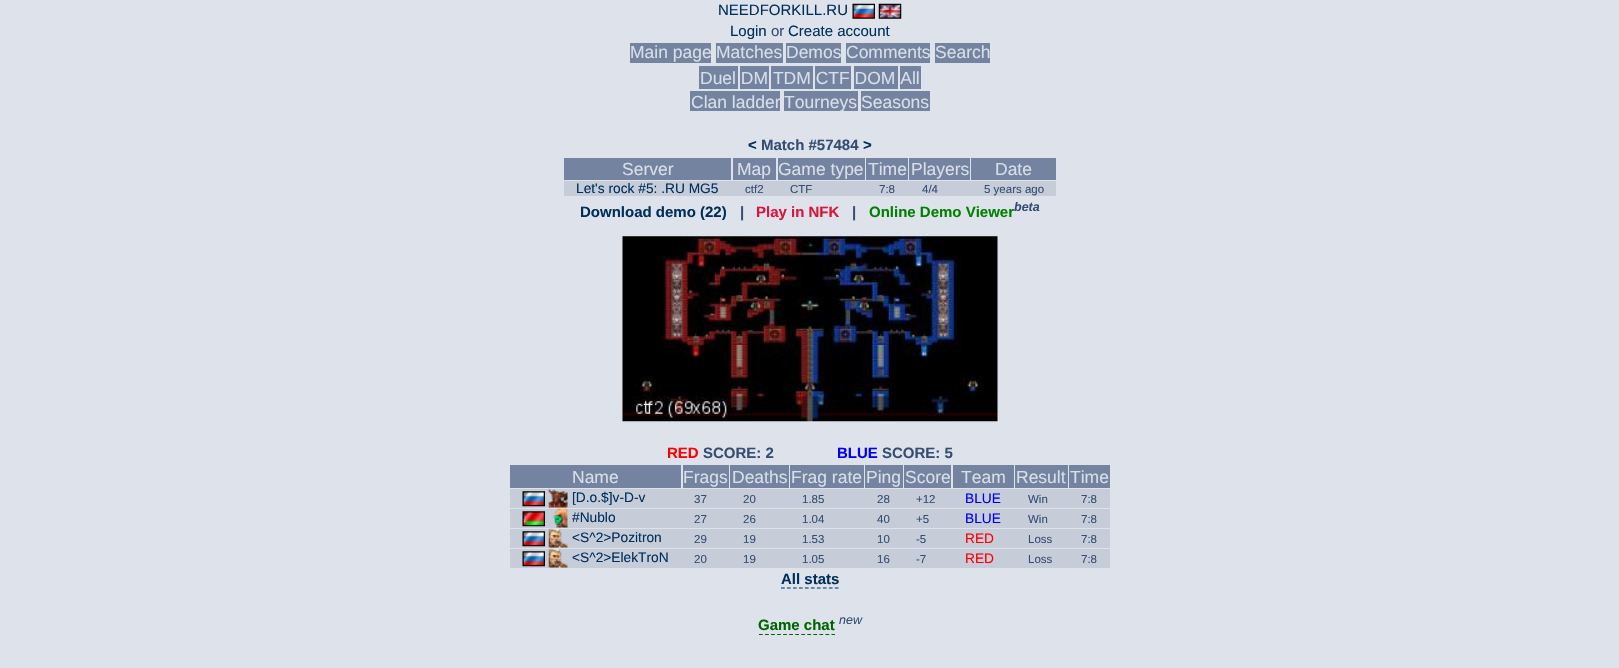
#include "include/core/SkBlurTypes.h"
#include "include/core/SkCanvas.h"
#include "include/core/SkData.h"
#include "include/core/SkFont.h"
#include "include/core/SkFontMgr.h"
#include "include/core/SkImage.h"
#include "include/core/SkMaskFilter.h"
#include "include/core/SkPaint.h"
#include "include/core/SkPathBuilder.h"
#include "include/core/SkTextBlob.h"
#include "include/effects/SkDashPathEffect.h"
#include "include/effects/SkGradientShader.h"
#include "include/utils/SkParsePath.h"

extern sk_sp<SkFontMgr> fontMgr;

static SkFont font(const char* family, int weight, float size, bool italic = false) {
    SkFontStyle style(weight, SkFontStyle::kNormal_Width,
        italic ? SkFontStyle::kItalic_Slant : SkFontStyle::kUpright_Slant);
    SkFont result(fontMgr->matchFamilyStyle(family, style), size);
    result.setSubpixel(true);
    return result;
}

static void drawLabel(SkCanvas* canvas, const char* s, float x, float y, const SkFont& font, SkColor color) {
    SkPaint ink(SkColor4f::FromColor(color));
    ink.setAntiAlias(true);
    canvas->drawString(s, x, y, font, ink);
}

static void fillRect(SkCanvas* canvas, float x, float y, float w, float h, SkColor color) {
    SkPaint ink(SkColor4f::FromColor(color));
    ink.setAntiAlias(true);
    canvas->drawRect(SkRect::MakeXYWH(x, y, w, h), ink);
}

static void drawPhoto(SkCanvas* canvas, const char* path, float x, float y, float w, float h) {
    auto image = SkImages::DeferredFromEncodedData(SkData::MakeFromFileName(path));
    canvas->drawImageRect(image, SkRect::MakeXYWH(x, y, w, h), SkSamplingOptions());
}

static SkPath parsePath(const char* data, bool evenOdd = false) {
    SkPath result = *SkParsePath::FromSVGString(data);
    if (evenOdd) result.setFillType(SkPathFillType::kEvenOdd);
    return result;
}

void draw(SkCanvas* canvas) {
    SkPaint paint;
    paint.setAntiAlias(true);
    canvas->clear(0xFFDEE3EB);
    SkFont font1 = font("Liberation Sans", 400, 15);
    drawLabel(canvas, "NEEDFORKILL.RU", 718, 15, font1, 0xFF002F5B);
    drawPhoto(canvas, "assets/img1.png", 852, 3, 23, 16);
    drawPhoto(canvas, "assets/img2.png", 878, 3, 24, 16);
    drawLabel(canvas, "Login", 730, 36, font1, 0xFF002F5B);
    drawLabel(canvas, "or", 771, 36, font1, 0xFF354D73);
    drawLabel(canvas, "Create account", 788, 36, font1, 0xFF002F5B);
    fillRect(canvas, 630, 43, 81, 20, 0xFF7484A0);
    SkFont font2 = font("Liberation Sans", 400, 17.5f);
    drawLabel(canvas, "Main page", 630, 58, font2, 0xFFD9DFE9);
    fillRect(canvas, 716, 43, 67, 20, 0xFF7484A0);
    drawLabel(canvas, "Matches", 716, 58, font2, 0xFFD9DFE9);
    fillRect(canvas, 786, 43, 55, 20, 0xFF7484A0);
    drawLabel(canvas, "Demos", 786, 58, font2, 0xFFD9DFE9);
    fillRect(canvas, 846, 43, 84, 20, 0xFF7484A0);
    drawLabel(canvas, "Comments", 846, 58, font2, 0xFFD9DFE9);
    fillRect(canvas, 935, 43, 55, 20, 0xFF7484A0);
    drawLabel(canvas, "Search", 935, 58, font2, 0xFFD9DFE9);
    fillRect(canvas, 740, 66, 29, 23, 0xFF7484A0);
    fillRect(canvas, 771, 66, 42, 23, 0xFF7484A0);
    fillRect(canvas, 815, 66, 36, 23, 0xFF7484A0);
    fillRect(canvas, 854, 66, 44, 23, 0xFF7484A0);
    fillRect(canvas, 900, 66, 21, 23, 0xFF7484A0);
    fillRect(canvas, 699, 66, 39, 23, 0xFF7484A0);
    drawLabel(canvas, "Duel DM TDM CTF DOM All", 700, 84, font2, 0xFFD9DFE9);
    fillRect(canvas, 690, 91, 90, 20, 0xFF7484A0);
    drawLabel(canvas, "Clan ladder", 691, 108, font2, 0xFFD9DFE9);
    fillRect(canvas, 784, 91, 74, 20, 0xFF7484A0);
    drawLabel(canvas, "Tourneys", 784, 108, font2, 0xFFD9DFE9);
    fillRect(canvas, 861, 91, 69, 20, 0xFF7484A0);
    drawLabel(canvas, "Seasons", 861, 108, font2, 0xFFD9DFE9);
    SkFont font3 = font("Liberation Sans", 700, 15);
    drawLabel(canvas, "<", 748, 150, font3, 0xFF002F5B);
    drawLabel(canvas, "Match #57484", 761, 150, font3, 0xFF354D73);
    drawLabel(canvas, ">", 863, 150, font3, 0xFF002F5B);
    fillRect(canvas, 564, 158, 167, 22, 0xFF7484A0);
    drawLabel(canvas, "Server", 622, 175, font2, 0xFFD9DFE9);
    fillRect(canvas, 733, 158, 43, 22, 0xFF7484A0);
    drawLabel(canvas, "Map", 737, 175, font2, 0xFFD9DFE9);
    fillRect(canvas, 778, 158, 87, 22, 0xFF7484A0);
    drawLabel(canvas, "Game type", 778, 175, font2, 0xFFD9DFE9);
    fillRect(canvas, 866, 158, 42, 22, 0xFF7484A0);
    drawLabel(canvas, "Time", 868, 175, font2, 0xFFD9DFE9);
    fillRect(canvas, 909, 158, 61, 22, 0xFF7484A0);
    drawLabel(canvas, "Players", 911, 175, font2, 0xFFD9DFE9);
    fillRect(canvas, 971, 158, 85, 22, 0xFF7484A0);
    drawLabel(canvas, "Date", 995, 175, font2, 0xFFD9DFE9);
    fillRect(canvas, 564, 181, 492, 15, 0xFFC7CCD9);
    SkFont font4 = font("Liberation Sans", 400, 13.75f);
    drawLabel(canvas, "Let's rock #5: .RU MG5", 576, 193, font4, 0xFF002F5B);
    SkFont font5 = font("Liberation Sans", 400, 11.5f);
    drawLabel(canvas, "ctf2", 745, 193, font5, 0xFF354D73);
    drawLabel(canvas, "CTF", 790, 193, font5, 0xFF354D73);
    drawLabel(canvas, "7:8", 879, 193, font5, 0xFF354D73);
    drawLabel(canvas, "4/4", 922, 193, font5, 0xFF354D73);
    drawLabel(canvas, "5 years ago", 984, 193, font5, 0xFF354D73);
    drawLabel(canvas, "Download demo (22)", 580, 217, font3, 0xFF002F5B);
    drawLabel(canvas, "|", 740, 217, font3, 0xFF354D73);
    drawLabel(canvas, "Play in NFK", 756, 217, font3, 0xFFDC143C);
    drawLabel(canvas, "|", 852, 217, font3, 0xFF354D73);
    drawLabel(canvas, "Online Demo Viewer", 869, 217, font3, 0xFF008000);
    SkFont font6 = font("Liberation Sans", 700, 12.5f, true);
    drawLabel(canvas, "beta", 1014, 211, font6, 0xFF354D73);
    drawPhoto(canvas, "assets/img3.png", 622, 236, 376, 186);
    drawLabel(canvas, "RED", 667, 458, font3, 0xFFFF0000);
    drawLabel(canvas, "SCORE: 2", 703, 458, font3, 0xFF354D73);
    drawLabel(canvas, "BLUE", 837, 458, font3, 0xFF0000FF);
    drawLabel(canvas, "SCORE: 5", 882, 458, font3, 0xFF354D73);
    fillRect(canvas, 510, 465, 171, 23, 0xFF7484A0);
    drawLabel(canvas, "Name", 572, 483, font2, 0xFFD9DFE9);
    fillRect(canvas, 683, 465, 46, 23, 0xFF7484A0);
    drawLabel(canvas, "Frags", 683, 483, font2, 0xFFD9DFE9);
    fillRect(canvas, 730, 465, 59, 23, 0xFF7484A0);
    drawLabel(canvas, "Deaths", 732, 483, font2, 0xFFD9DFE9);
    fillRect(canvas, 790, 465, 74, 23, 0xFF7484A0);
    drawLabel(canvas, "Frag rate", 791, 483, font2, 0xFFD9DFE9);
    fillRect(canvas, 865, 465, 38, 23, 0xFF7484A0);
    drawLabel(canvas, "Ping", 866, 483, font2, 0xFFD9DFE9);
    fillRect(canvas, 904, 465, 47, 23, 0xFF7484A0);
    drawLabel(canvas, "Score", 905, 483, font2, 0xFFD9DFE9);
    fillRect(canvas, 953, 465, 61, 23, 0xFF7484A0);
    drawLabel(canvas, "Team", 961, 483, font2, 0xFFD9DFE9);
    fillRect(canvas, 1015, 465, 53, 23, 0xFF7484A0);
    drawLabel(canvas, "Result", 1016, 483, font2, 0xFFD9DFE9);
    fillRect(canvas, 1069, 465, 41, 23, 0xFF7484A0);
    drawLabel(canvas, "Time", 1070, 483, font2, 0xFFD9DFE9);
    fillRect(canvas, 510, 489, 600, 19, 0xFFC7CCD9);
    drawPhoto(canvas, "assets/img4.png", 522, 491, 23, 16);
    drawPhoto(canvas, "assets/img5.png", 548, 488, 20, 20);
    drawLabel(canvas, "[D.o.$]v-D-v", 572, 502, font4, 0xFF002F5B);
    drawLabel(canvas, "37", 694, 503, font5, 0xFF354D73);
    drawLabel(canvas, "20", 743, 503, font5, 0xFF354D73);
    drawLabel(canvas, "1.85", 802, 503, font5, 0xFF354D73);
    drawLabel(canvas, "28", 877, 503, font5, 0xFF354D73);
    drawLabel(canvas, "+12", 916, 503, font5, 0xFF354D73);
    drawLabel(canvas, "BLUE", 965, 503, font4, 0xFF0000FF);
    drawLabel(canvas, "Win", 1028, 503, font5, 0xFF354D73);
    drawLabel(canvas, "7:8", 1081, 503, font5, 0xFF354D73);
    fillRect(canvas, 510, 509, 600, 19, 0xFFC7CCD9);
    drawPhoto(canvas, "assets/img6.png", 522, 511, 23, 16);
    drawPhoto(canvas, "assets/img7.png", 553, 508, 15, 20);
    drawLabel(canvas, "#Nublo", 572, 522, font4, 0xFF002F5B);
    drawLabel(canvas, "27", 694, 523, font5, 0xFF354D73);
    drawLabel(canvas, "26", 743, 523, font5, 0xFF354D73);
    drawLabel(canvas, "1.04", 802, 523, font5, 0xFF354D73);
    drawLabel(canvas, "40", 877, 523, font5, 0xFF354D73);
    drawLabel(canvas, "+5", 916, 523, font5, 0xFF354D73);
    drawLabel(canvas, "BLUE", 965, 523, font4, 0xFF0000FF);
    drawLabel(canvas, "Win", 1028, 523, font5, 0xFF354D73);
    drawLabel(canvas, "7:8", 1081, 523, font5, 0xFF354D73);
    fillRect(canvas, 510, 529, 600, 19, 0xFFC7CCD9);
    drawPhoto(canvas, "assets/img4.png", 522, 531, 23, 16);
    drawPhoto(canvas, "assets/img8.png", 548, 528, 20, 20);
    drawLabel(canvas, "<S^2>Pozitron", 572, 542, font4, 0xFF002F5B);
    drawLabel(canvas, "29", 694, 543, font5, 0xFF354D73);
    drawLabel(canvas, "19", 743, 543, font5, 0xFF354D73);
    drawLabel(canvas, "1.53", 802, 543, font5, 0xFF354D73);
    drawLabel(canvas, "10", 877, 543, font5, 0xFF354D73);
    drawLabel(canvas, "-5", 916, 543, font5, 0xFF354D73);
    drawLabel(canvas, "RED", 965, 543, font4, 0xFFFF0000);
    drawLabel(canvas, "Loss", 1028, 543, font5, 0xFF354D73);
    drawLabel(canvas, "7:8", 1081, 543, font5, 0xFF354D73);
    fillRect(canvas, 510, 549, 600, 19, 0xFFC7CCD9);
    drawPhoto(canvas, "assets/img4.png", 522, 551, 23, 16);
    drawPhoto(canvas, "assets/img8.png", 548, 548, 20, 20);
    drawLabel(canvas, "<S^2>ElekTroN", 572, 562, font4, 0xFF002F5B);
    drawLabel(canvas, "20", 694, 563, font5, 0xFF354D73);
    drawLabel(canvas, "19", 743, 563, font5, 0xFF354D73);
    drawLabel(canvas, "1.05", 802, 563, font5, 0xFF354D73);
    drawLabel(canvas, "16", 877, 563, font5, 0xFF354D73);
    drawLabel(canvas, "-7", 916, 563, font5, 0xFF354D73);
    drawLabel(canvas, "RED", 965, 563, font4, 0xFFFF0000);
    drawLabel(canvas, "Loss", 1028, 563, font5, 0xFF354D73);
    drawLabel(canvas, "7:8", 1081, 563, font5, 0xFF354D73);
    drawLabel(canvas, "All stats", 781, 584, font3, 0xFF002F5B);
    paint.setStroke(true);
    paint.setStrokeWidth(1.2f);
    paint.setColor(0xFF002F5B);
    paint.setPathEffect(SkDashPathEffect::Make({{3.75f, 2.23f}}, 0));
    canvas->drawPath(parsePath("M781 588H839"), paint);
    paint.setPathEffect(nullptr);
    drawLabel(canvas, "Game chat", 758, 630, font3, 0xFF006400);
    paint.setColor(0xFF006400);
    paint.setPathEffect(SkDashPathEffect::Make({{3.75f, 2.29f}}, 0));
    canvas->drawPath(parsePath("M759 634.5H835"), paint);
    paint.setPathEffect(nullptr);
    SkFont font7 = font("Liberation Sans", 400, 12.5f, true);
    drawLabel(canvas, "new", 839, 624, font7, 0xFF354D73);
}
